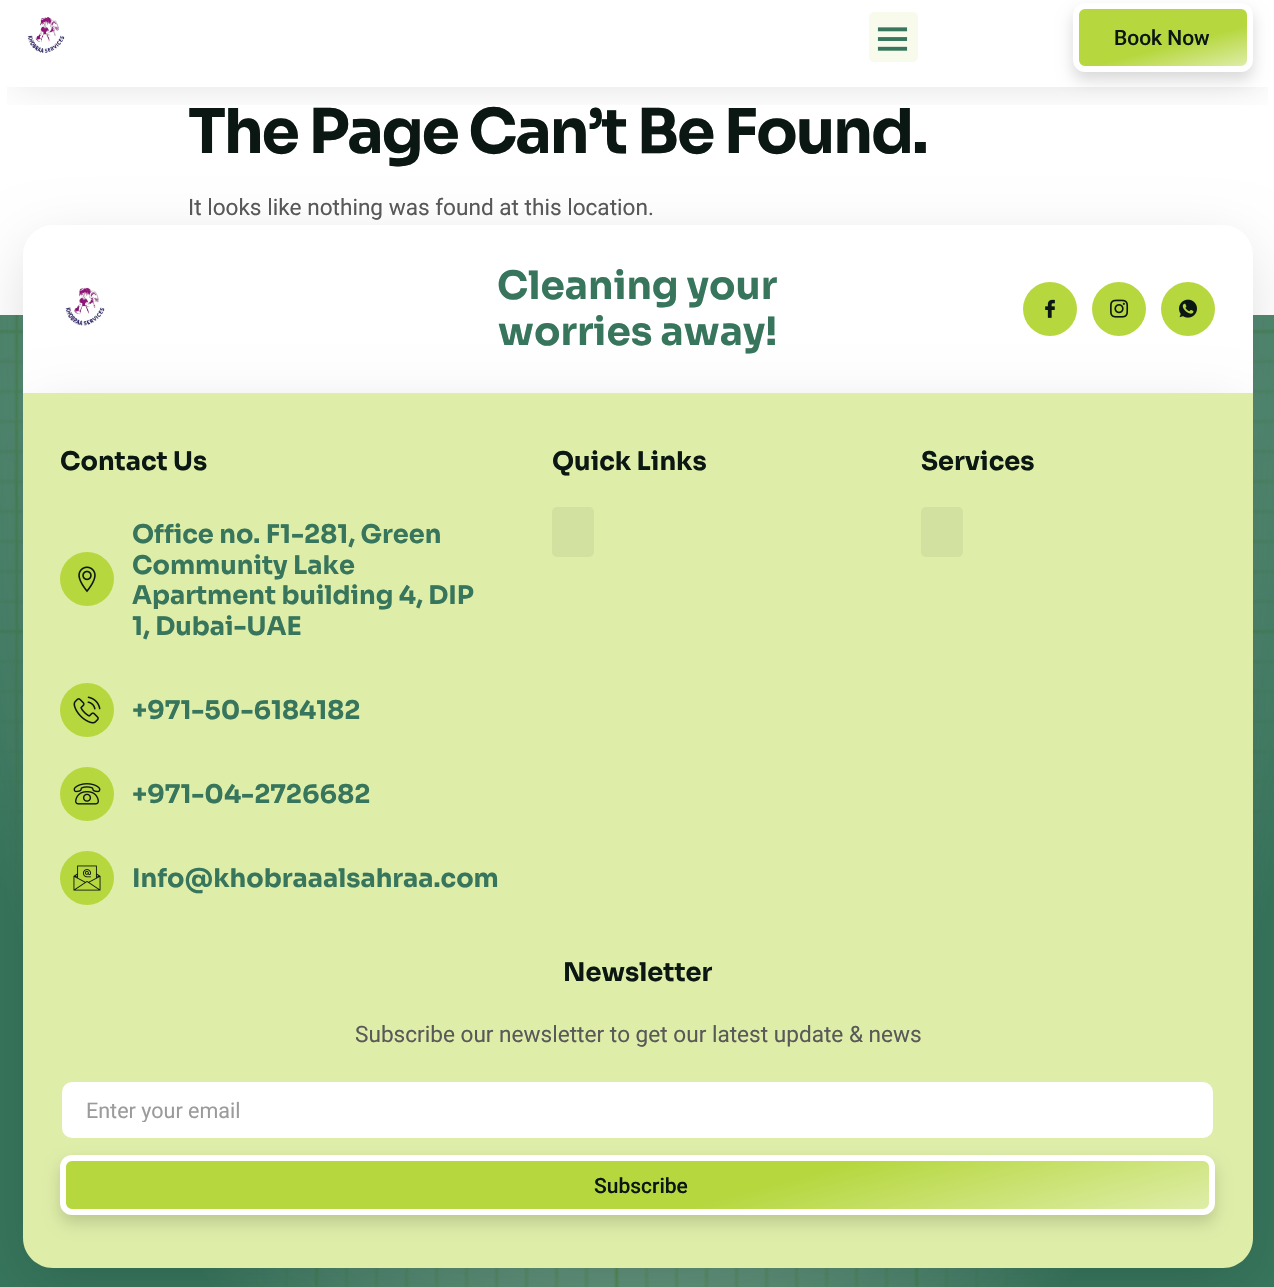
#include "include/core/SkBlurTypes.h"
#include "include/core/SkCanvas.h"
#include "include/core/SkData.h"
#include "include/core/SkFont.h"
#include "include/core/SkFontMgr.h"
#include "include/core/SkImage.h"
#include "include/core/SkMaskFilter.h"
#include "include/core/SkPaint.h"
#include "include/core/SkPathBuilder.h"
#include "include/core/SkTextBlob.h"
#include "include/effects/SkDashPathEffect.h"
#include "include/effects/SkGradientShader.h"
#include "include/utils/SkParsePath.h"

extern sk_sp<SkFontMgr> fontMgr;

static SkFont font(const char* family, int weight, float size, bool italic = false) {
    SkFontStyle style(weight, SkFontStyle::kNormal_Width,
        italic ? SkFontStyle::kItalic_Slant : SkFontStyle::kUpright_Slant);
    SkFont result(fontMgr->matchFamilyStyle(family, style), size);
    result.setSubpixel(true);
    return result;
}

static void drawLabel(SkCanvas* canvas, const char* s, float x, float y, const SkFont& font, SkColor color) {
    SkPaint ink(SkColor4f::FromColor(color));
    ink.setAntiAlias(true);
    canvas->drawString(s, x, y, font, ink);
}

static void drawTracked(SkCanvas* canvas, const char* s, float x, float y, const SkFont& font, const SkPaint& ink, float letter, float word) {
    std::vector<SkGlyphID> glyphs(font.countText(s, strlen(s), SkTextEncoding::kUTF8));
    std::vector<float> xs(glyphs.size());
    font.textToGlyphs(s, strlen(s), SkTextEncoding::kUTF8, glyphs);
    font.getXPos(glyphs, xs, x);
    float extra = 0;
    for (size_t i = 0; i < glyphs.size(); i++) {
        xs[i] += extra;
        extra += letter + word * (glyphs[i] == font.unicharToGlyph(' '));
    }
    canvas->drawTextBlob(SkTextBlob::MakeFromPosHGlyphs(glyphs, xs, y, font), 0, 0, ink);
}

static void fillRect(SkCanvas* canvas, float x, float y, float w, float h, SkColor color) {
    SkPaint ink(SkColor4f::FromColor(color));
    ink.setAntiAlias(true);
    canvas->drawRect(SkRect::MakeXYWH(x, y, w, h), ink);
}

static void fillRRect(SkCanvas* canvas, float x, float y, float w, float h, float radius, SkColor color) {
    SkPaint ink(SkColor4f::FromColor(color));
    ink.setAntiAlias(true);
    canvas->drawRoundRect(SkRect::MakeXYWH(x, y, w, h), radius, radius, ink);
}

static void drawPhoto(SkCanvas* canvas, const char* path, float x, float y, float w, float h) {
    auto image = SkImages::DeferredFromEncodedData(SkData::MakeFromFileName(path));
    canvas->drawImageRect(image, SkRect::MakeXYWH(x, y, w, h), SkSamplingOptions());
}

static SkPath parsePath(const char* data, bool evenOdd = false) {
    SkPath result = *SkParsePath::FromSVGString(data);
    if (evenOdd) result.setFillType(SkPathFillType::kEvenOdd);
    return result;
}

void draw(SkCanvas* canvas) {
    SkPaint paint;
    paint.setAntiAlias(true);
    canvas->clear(0xFFFFFFFF);
    canvas->save();
    canvas->clipRect(SkRect::MakeXYWH(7, 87, 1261, 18));
    paint.setColor(0x26000000);
    paint.setMaskFilter(SkMaskFilter::MakeBlur(kNormal_SkBlurStyle, 22.5f));
    canvas->drawRect(SkRect::MakeXYWH(15, 9, 1245, 71), paint);
    paint.setMaskFilter(nullptr);
    canvas->restore();
    drawPhoto(canvas, "assets/img1.png", 27, 17, 38, 36);
    fillRRect(canvas, 869, 12, 49, 50, 5, 0xFFF8FBEC);
    drawPhoto(canvas, "assets/img2.png", 877, 27, 31, 24);
    paint.setMaskFilter(SkMaskFilter::MakeBlur(kNormal_SkBlurStyle, 7.5f));
    canvas->drawRoundRect(SkRect::MakeXYWH(1073, 11, 180, 69), 12, 12, paint);
    paint.setMaskFilter(nullptr);
    {
        const SkColor colors[] = {0xFFB6D73E, 0xFFDEEDA8};
        const float stops[] = {0.6f, 1};
        const SkPoint ends[] = {{1150, -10}, {1175, 85}};
        paint.setShader(SkGradientShader::MakeLinear(ends, colors, stops, 2, SkTileMode::kClamp));
        paint.setAlpha(255);
    }
    canvas->drawRect(SkRect::MakeXYWH(1079, 9, 168, 57), paint);
    paint.setStroke(true);
    paint.setStrokeWidth(6);
    paint.setShader(nullptr);
    paint.setColor(0xFFFFFFFF);
    canvas->drawRoundRect(SkRect::MakeXYWH(1076, 6, 174, 63), 9, 9, paint);
    SkFont font1 = font("Roboto", 500, 21);
    drawLabel(canvas, "Book Now", 1114, 45, font1, 0xFF0B1712);
    SkFont font2 = font("Sora", 700, 61.5f);
    paint.setStroke(false);
    paint.setColor(0xFF0B1712);
    drawTracked(canvas, "The Page Can’t Be Found.", 188, 153, font2, paint, -2.25f, 0);
    SkFont font3 = font("Roboto", 400, 22.6f);
    drawLabel(canvas, "It looks like nothing was found at this location.", 188, 215, font3, 0xFF595959);
    fillRect(canvas, 0, 315, 1274, 972, 0xFFF8FBEC);
    drawPhoto(canvas, "assets/img3.png", 0, 315, 1274, 972);
    {
        const SkColor colors[] = {0x0037755C, 0xFF37755C};
        const float stops[] = {0, 0.8f};
        SkMatrix m = SkMatrix::Translate(638, 315).preScale(902, 1506);
        paint.setShader(SkGradientShader::MakeRadial({0, 0}, 1, colors, stops, 2, SkTileMode::kClamp, 0, &m));
        paint.setAlpha(255);
    }
    canvas->drawRect(SkRect::MakeXYWH(0, 315, 1274, 972), paint);
    paint.setShader(nullptr);
    paint.setColor(0x26000000);
    paint.setMaskFilter(SkMaskFilter::MakeBlur(kNormal_SkBlurStyle, 30));
    canvas->drawRoundRect(SkRect::MakeXYWH(30, 248, 1215, 153), 23, 23, paint);
    paint.setMaskFilter(nullptr);
    paint.setColor(0xFFFFFFFF);
    canvas->drawPath(parsePath("M53 225H1223C1239.5 225 1253 238.5 1253 255V393H23V255C23 238.5 36.5 225 53 225Z"), paint);
    drawPhoto(canvas, "assets/img4.png", 65, 287, 40, 39);
    SkFont font4 = font("Sora", 700, 39);
    drawLabel(canvas, "Cleaning your", 497, 299, font4, 0xFF37755C);
    drawLabel(canvas, "worries away!", 498, 345, font4, 0xFF37755C);
    paint.setColor(0xFFB6D73E);
    canvas->drawCircle(1050, 309, 27, paint);
    drawPhoto(canvas, "assets/img5.png", 1045, 299, 10, 19);
    canvas->drawCircle(1119, 309, 27, paint);
    drawPhoto(canvas, "assets/img6.png", 1110, 299, 19, 19);
    canvas->drawCircle(1188, 309, 27, paint);
    drawPhoto(canvas, "assets/img7.png", 1179, 299, 18, 19);
    paint.setColor(0x26000000);
    paint.setMaskFilter(SkMaskFilter::MakeBlur(kNormal_SkBlurStyle, 30));
    canvas->drawRoundRect(SkRect::MakeXYWH(30, 416, 1215, 859), 23, 23, paint);
    paint.setMaskFilter(nullptr);
    paint.setColor(0xFFDEEDA8);
    canvas->drawPath(parsePath("M23 393H1253V1238C1253 1254.5 1239.5 1268 1223 1268H53C36.5 1268 23 1254.5 23 1238Z"), paint);
    SkFont font5 = font("Sora", 700, 25.6f);
    drawLabel(canvas, "Contact Us", 60, 470, font5, 0xFF0B1712);
    paint.setColor(0xFFB6D73E);
    canvas->drawCircle(87, 579, 27, paint);
    drawPhoto(canvas, "assets/img8.png", 78, 566, 18, 27);
    drawLabel(canvas, "Office no. F1-281, Green", 132, 543, font5, 0xFF37755C);
    drawLabel(canvas, "Community Lake", 132, 574, font5, 0xFF37755C);
    drawLabel(canvas, "Apartment building 4, DIP", 132, 604, font5, 0xFF37755C);
    drawLabel(canvas, "1, Dubai-UAE", 132, 635, font5, 0xFF37755C);
    canvas->drawCircle(87, 710, 27, paint);
    drawPhoto(canvas, "assets/img9.png", 73, 696, 28, 28);
    drawLabel(canvas, "+971-50-6184182", 132, 719, font5, 0xFF37755C);
    canvas->drawCircle(87, 794, 27, paint);
    drawPhoto(canvas, "assets/img10.png", 73, 783, 28, 22);
    drawLabel(canvas, "+971-04-2726682", 132, 803, font5, 0xFF37755C);
    canvas->drawCircle(87, 878, 27, paint);
    drawPhoto(canvas, "assets/img11.png", 73, 865, 28, 26);
    drawLabel(canvas, "Info@khobraaalsahraa.com", 132, 887, font5, 0xFF37755C);
    drawLabel(canvas, "Quick Links", 552, 470, font5, 0xFF0B1712);
    fillRRect(canvas, 552, 507, 42, 50, 5, 0xFFD3E1A0);
    drawLabel(canvas, "Services", 921, 470, font5, 0xFF0B1712);
    fillRRect(canvas, 921, 507, 42, 50, 5, 0xFFD3E1A0);
    drawLabel(canvas, "Newsletter", 563, 981, font5, 0xFF0B1712);
    drawLabel(canvas, "Subscribe our newsletter to get our latest update & news", 355, 1042, font3, 0xFF595959);
    paint.setColor(0xFFFFFFFF);
    canvas->drawRoundRect(SkRect::MakeXYWH(61, 1081, 1153, 58), 11, 11, paint);
    paint.setStroke(true);
    paint.setStrokeWidth(2);
    paint.setColor(0xFFDEEDA8);
    canvas->drawRoundRect(SkRect::MakeXYWH(61, 1081, 1153, 58), 11, 11, paint);
    canvas->save();
    canvas->clipRect(SkRect::MakeXYWH(86, 1098, 1104, 24));
    SkFont font6 = font("Roboto", 400, 21.5f);
    drawLabel(canvas, "Enter your email", 86, 1118, font6, 0xFF9B9B9B);
    canvas->restore();
    paint.setStroke(false);
    paint.setColor(0x26000000);
    paint.setMaskFilter(SkMaskFilter::MakeBlur(kNormal_SkBlurStyle, 7.5f));
    canvas->drawRoundRect(SkRect::MakeXYWH(60, 1163, 1155, 60), 12, 12, paint);
    paint.setMaskFilter(nullptr);
    {
        const SkColor colors[] = {0xFFB6D73E, 0xFFDEEDA8};
        const float stops[] = {0.6f, 1};
        const SkPoint ends[] = {{593, 1020}, {682, 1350}};
        paint.setShader(SkGradientShader::MakeLinear(ends, colors, stops, 2, SkTileMode::kClamp));
        paint.setAlpha(255);
    }
    canvas->drawRect(SkRect::MakeXYWH(66, 1161, 1143, 48), paint);
    paint.setStroke(true);
    paint.setStrokeWidth(6);
    paint.setShader(nullptr);
    paint.setColor(0xFFFFFFFF);
    canvas->drawRoundRect(SkRect::MakeXYWH(63, 1158, 1149, 54), 9, 9, paint);
    drawLabel(canvas, "Subscribe", 594, 1193, font1, 0xFF0B1712);
}
